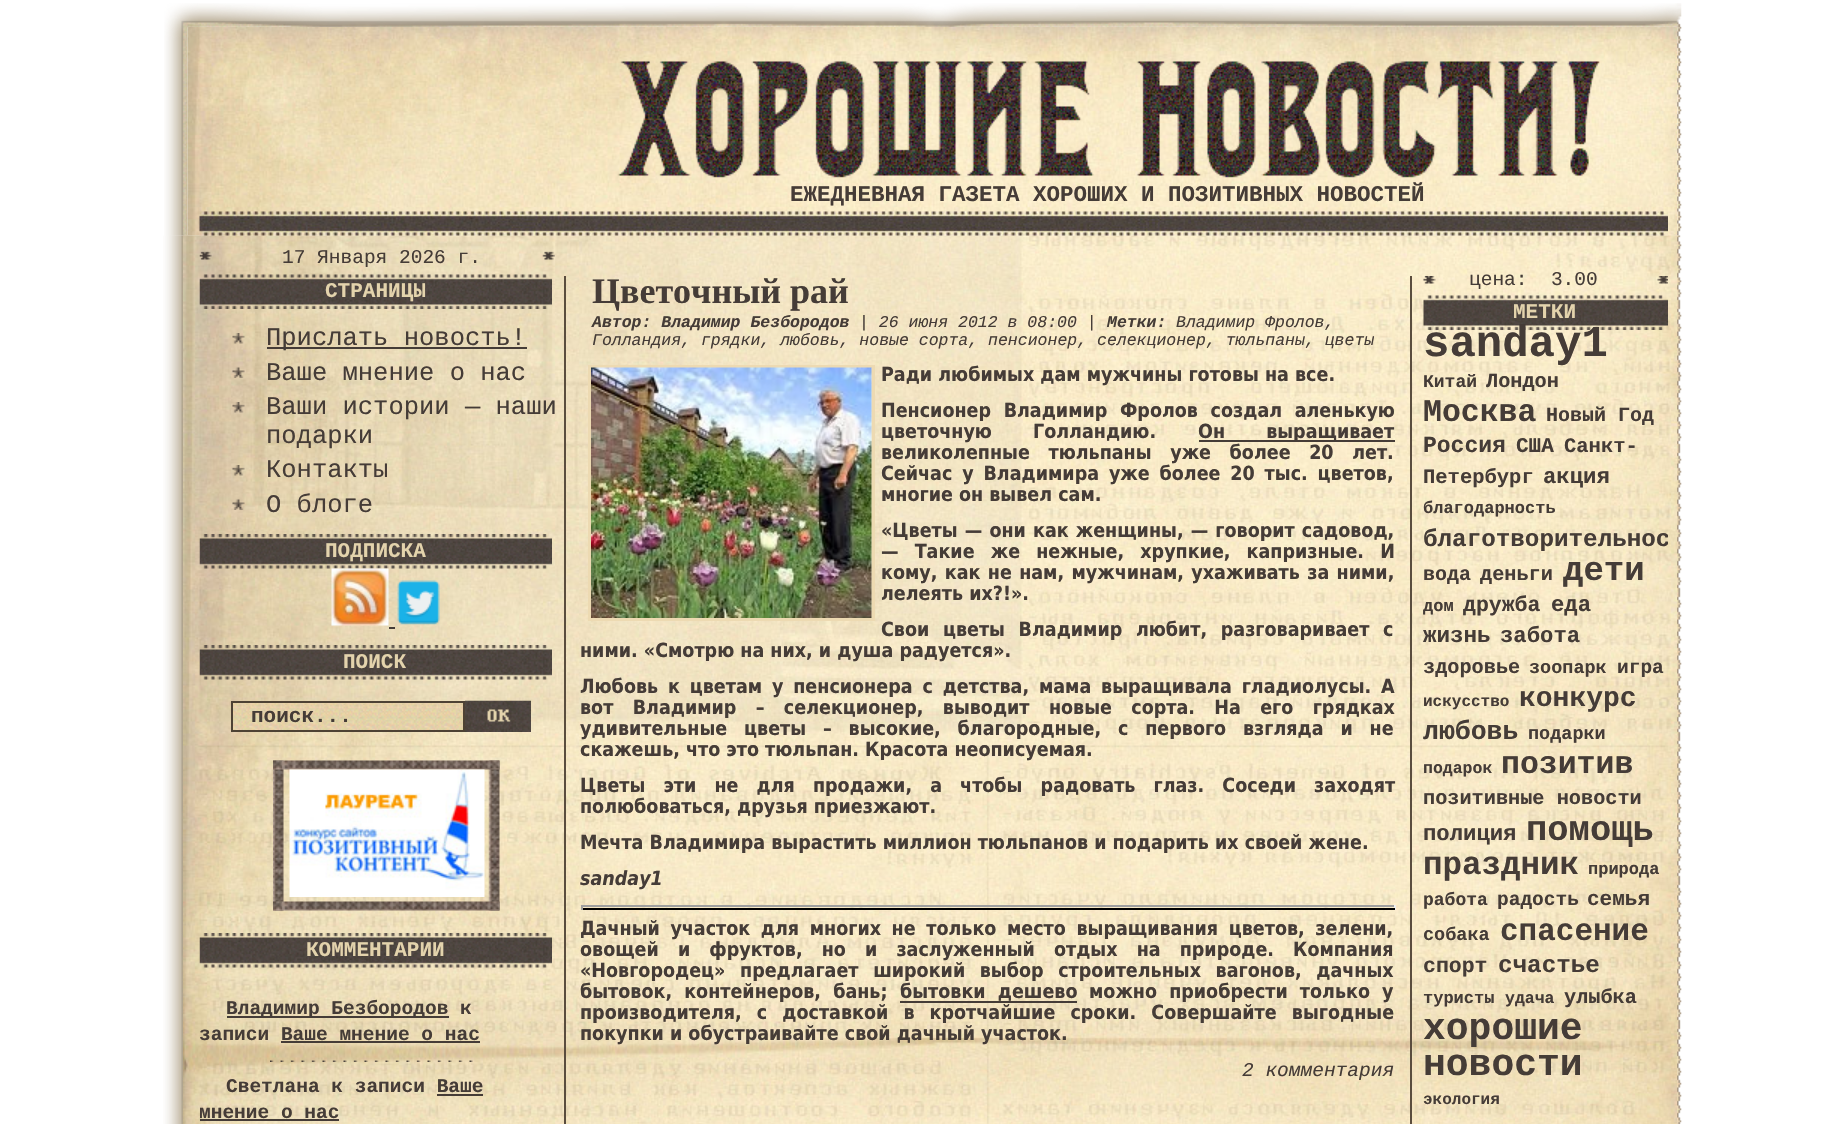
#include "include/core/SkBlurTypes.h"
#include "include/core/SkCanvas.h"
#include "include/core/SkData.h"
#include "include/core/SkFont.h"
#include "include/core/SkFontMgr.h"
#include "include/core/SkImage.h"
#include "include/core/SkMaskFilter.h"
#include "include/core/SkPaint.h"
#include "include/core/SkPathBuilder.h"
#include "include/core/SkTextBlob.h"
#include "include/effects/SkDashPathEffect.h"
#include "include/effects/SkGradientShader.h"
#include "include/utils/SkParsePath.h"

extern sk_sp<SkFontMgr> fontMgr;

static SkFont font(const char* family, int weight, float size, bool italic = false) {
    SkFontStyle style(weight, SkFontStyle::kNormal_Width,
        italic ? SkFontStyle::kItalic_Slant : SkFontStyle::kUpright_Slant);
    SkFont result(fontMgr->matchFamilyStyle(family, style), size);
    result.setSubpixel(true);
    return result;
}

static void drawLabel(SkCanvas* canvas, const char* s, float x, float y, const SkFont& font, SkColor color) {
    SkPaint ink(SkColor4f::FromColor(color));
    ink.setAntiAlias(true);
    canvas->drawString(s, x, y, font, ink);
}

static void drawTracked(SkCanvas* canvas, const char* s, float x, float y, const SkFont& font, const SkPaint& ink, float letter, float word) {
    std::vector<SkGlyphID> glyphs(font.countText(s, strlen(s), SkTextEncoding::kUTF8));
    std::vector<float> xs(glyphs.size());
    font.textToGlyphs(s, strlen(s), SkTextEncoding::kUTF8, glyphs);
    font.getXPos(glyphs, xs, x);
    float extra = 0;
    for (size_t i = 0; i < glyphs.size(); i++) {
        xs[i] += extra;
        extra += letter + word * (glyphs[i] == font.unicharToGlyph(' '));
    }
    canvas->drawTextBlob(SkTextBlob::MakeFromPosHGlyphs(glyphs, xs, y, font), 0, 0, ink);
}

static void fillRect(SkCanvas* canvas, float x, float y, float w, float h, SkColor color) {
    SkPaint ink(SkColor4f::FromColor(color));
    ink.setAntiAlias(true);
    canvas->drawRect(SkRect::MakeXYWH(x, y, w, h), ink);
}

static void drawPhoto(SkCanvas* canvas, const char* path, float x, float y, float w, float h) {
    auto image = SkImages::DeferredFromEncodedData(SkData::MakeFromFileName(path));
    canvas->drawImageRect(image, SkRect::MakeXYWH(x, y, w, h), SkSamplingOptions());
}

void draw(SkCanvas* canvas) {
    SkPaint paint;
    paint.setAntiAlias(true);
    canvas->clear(0xFFFFFFFF);
    drawPhoto(canvas, "assets/img1.png", 164, 3, 1518, 233);
    drawPhoto(canvas, "assets/img2.png", 187, 27, 1490, 209);
    drawPhoto(canvas, "assets/img5.png", 163, 235, 1519, 889);
    drawPhoto(canvas, "assets/img6.png", 183, 235, 1494, 889);
    drawPhoto(canvas, "assets/img3.png", 199, 211, 1469, 25);
    drawPhoto(canvas, "assets/img4.png", 617, 61, 983, 117);
    SkFont font1 = font("Liberation Mono", 700, 22.5f);
    drawLabel(canvas, "ЕЖЕДНЕВНАЯ ГАЗЕТА ХОРОШИХ И ПОЗИТИВНЫХ НОВОСТЕЙ", 790, 201, font1, 0xFF453C37);
    drawPhoto(canvas, "assets/img7.png", 199, 251, 356, 9);
    SkFont font2 = font("Liberation Mono", 400, 19.5f);
    drawLabel(canvas, "17 Января 2026 г.", 282, 263, font2, 0xFF453C37);
    drawPhoto(canvas, "assets/img8.png", 199, 274, 353, 35);
    SkFont font3 = font("Liberation Mono", 700, 21);
    drawLabel(canvas, "СТРАНИЦЫ", 325, 297, font3, 0xFFE3D3AC);
    drawPhoto(canvas, "assets/img9.png", 232, 333, 13, 11);
    fillRect(canvas, 267, 347, 260, 2, 0xFF453C37);
    SkFont font4 = font("Liberation Mono", 400, 25.5f);
    drawLabel(canvas, "Прислать новость!", 266, 345, font4, 0xFF453C37);
    drawPhoto(canvas, "assets/img10.png", 232, 367, 13, 11);
    drawLabel(canvas, "Ваше мнение о нас", 266, 380, font4, 0xFF453C37);
    drawPhoto(canvas, "assets/img11.png", 232, 402, 13, 11);
    drawLabel(canvas, "Ваши истории — наши", 266, 414, font4, 0xFF453C37);
    drawLabel(canvas, "подарки", 266, 443, font4, 0xFF453C37);
    drawPhoto(canvas, "assets/img12.png", 232, 465, 13, 11);
    drawLabel(canvas, "Контакты", 266, 477, font4, 0xFF453C37);
    drawPhoto(canvas, "assets/img13.png", 232, 499, 13, 11);
    drawLabel(canvas, "О блоге", 266, 512, font4, 0xFF453C37);
    drawPhoto(canvas, "assets/img14.png", 199, 534, 353, 35);
    drawLabel(canvas, "ПОДПИСКА", 325, 557, font3, 0xFFE3D3AC);
    drawPhoto(canvas, "assets/img15.png", 331, 568, 58, 58);
    drawPhoto(canvas, "assets/img16.png", 397, 580, 43, 45);
    fillRect(canvas, 389, 627, 6, 2, 0xFF453C37);
    drawPhoto(canvas, "assets/img17.png", 199, 645, 353, 35);
    drawLabel(canvas, "ПОИСК", 343, 668, font3, 0xFFE3D3AC);
    drawPhoto(canvas, "assets/img18.png", 233, 703, 230, 27);
    paint.setStroke(true);
    paint.setStrokeWidth(2);
    paint.setColor(0xFF4E4234);
    canvas->drawRect(SkRect::MakeXYWH(232, 702, 232, 29), paint);
    drawLabel(canvas, "поиск...", 251, 722, font3, 0xFF453C37);
    drawPhoto(canvas, "assets/img19.png", 465, 700, 66, 32);
    drawPhoto(canvas, "assets/img20.png", 273, 760, 227, 151);
    drawPhoto(canvas, "assets/img21.png", 273, 760, 227, 10);
    drawPhoto(canvas, "assets/img22.png", 273, 901, 227, 10);
    drawPhoto(canvas, "assets/img23.png", 289, 769, 196, 128);
    drawPhoto(canvas, "assets/img24.png", 199, 933, 353, 35);
    drawLabel(canvas, "КОММЕНТАРИИ", 306, 956, font3, 0xFFE3D3AC);
    fillRect(canvas, 227, 1016, 222, 2, 0xFF453C37);
    SkFont font5 = font("Liberation Mono", 700, 19.5f);
    drawLabel(canvas, "Владимир Безбородов к", 226, 1014, font5, 0xFF453C37);
    drawLabel(canvas, "записи Ваше мнение о нас", 199, 1040, font5, 0xFF453C37);
    fillRect(canvas, 281, 1041, 199, 2, 0xFF453C37);
    drawPhoto(canvas, "assets/img25.png", 270, 1060, 203, 2);
    drawLabel(canvas, "Светлана к записи Ваше", 226, 1092, font5, 0xFF453C37);
    canvas->save();
    canvas->clipRect(SkRect::MakeXYWH(200, 246, 1468, 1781));
    drawLabel(canvas, "мнение о нас", 199, 1118, font5, 0xFF453C37);
    canvas->restore();
    fillRect(canvas, 437, 1094, 46, 2, 0xFF453C37);
    fillRect(canvas, 200, 1119, 139, 2, 0xFF453C37);
    fillRect(canvas, 1410, 276, 2, 848, 0xFF5A4D3E);
    fillRect(canvas, 564, 276, 2, 848, 0xFF5A4D3E);
    SkFont font6 = font("Liberation Serif", 700, 36);
    drawLabel(canvas, "Цветочный рай", 592, 303, font6, 0xFF453C37);
    SkFont font7 = font("Liberation Mono", 700, 16.5f, true);
    drawLabel(canvas, "Автор: Владимир Безбородов", 592, 327, font7, 0xFF453C37);
    SkFont font8 = font("Liberation Mono", 400, 16.5f, true);
    drawLabel(canvas, "| 26 июня 2012 в 08:00 |", 859, 327, font8, 0xFF453C37);
    drawLabel(canvas, "Метки:", 1107, 327, font7, 0xFF453C37);
    drawLabel(canvas, "Владимир Фролов,", 1176, 327, font8, 0xFF453C37);
    drawLabel(canvas, "Голландия, грядки, любовь, новые сорта, пенсионер, селекционер, тюльпаны, цветы", 592, 345, font8, 0xFF453C37);
    paint.setStrokeWidth(3);
    paint.setColor(0xFFEDDAB2);
    canvas->drawRect(SkRect::MakeXYWH(589.5f, 366.5f, 284, 253), paint);
    drawPhoto(canvas, "assets/img26.png", 591, 367, 281, 251);
    SkFont font9 = font("DejaVu Sans", 700, 19.5f);
    drawLabel(canvas, "Ради любимых дам мужчины готовы на все.", 881, 381, font9, 0xFF453C37);
    paint.setStroke(false);
    paint.setColor(0xFF453C37);
    drawTracked(canvas, "Пенсионер Владимир Фролов создал аленькую", 881, 417, font9, paint, 0, 6.5f);
    drawTracked(canvas, "цветочную Голландию.", 881, 438, font9, paint, 0, 35);
    fillRect(canvas, 1199, 440, 196, 2, 0xFF453C37);
    drawTracked(canvas, "Он выращивает", 1198, 438, font9, paint, 0, 35);
    drawTracked(canvas, "великолепные тюльпаны уже более 20 лет.", 881, 459, font9, paint, 0, 12.5f);
    drawTracked(canvas, "Сейчас у Владимира уже более 20 тыс. цветов,", 881, 480, font9, paint, 0, 3.75f);
    drawLabel(canvas, "многие он вывел сам.", 881, 501, font9, 0xFF453C37);
    drawTracked(canvas, "«Цветы — они как женщины, — говорит садовод,", 881, 537, font9, paint, 0, 1);
    drawTracked(canvas, "— Такие же нежные, хрупкие, капризные. И", 881, 558, font9, paint, 0, 10);
    drawTracked(canvas, "кому, как не нам, мужчинам, ухаживать за ними,", 881, 579, font9, paint, 0, 1.25f);
    drawLabel(canvas, "лелеять их?!».", 881, 600, font9, 0xFF453C37);
    drawTracked(canvas, "Свои цветы Владимир любит, разговаривает с", 881, 636, font9, paint, 0, 7.5f);
    drawLabel(canvas, "ними. «Смотрю на них, и душа радуется».", 580, 657, font9, 0xFF453C37);
    drawTracked(canvas, "Любовь к цветам у пенсионера с детства, мама выращивала гладиолусы. А", 580, 693, font9, paint, 0, 3.75f);
    drawTracked(canvas, "вот Владимир – селекционер, выводит новые сорта. На его грядках", 580, 714, font9, paint, 0, 13.25f);
    drawTracked(canvas, "удивительные цветы – высокие, благородные, с первого взгляда и не", 580, 735, font9, paint, 0, 10.75f);
    drawLabel(canvas, "скажешь, что это тюльпан. Красота неописуемая.", 580, 756, font9, 0xFF453C37);
    drawTracked(canvas, "Цветы эти не для продажи, а чтобы радовать глаз. Соседи заходят", 580, 792, font9, paint, 0, 12);
    drawLabel(canvas, "полюбоваться, друзья приезжают.", 580, 813, font9, 0xFF453C37);
    drawLabel(canvas, "Мечта Владимира вырастить миллион тюльпанов и подарить их своей жене.", 580, 849, font9, 0xFF453C37);
    SkFont font10 = font("DejaVu Sans", 700, 19.5f, true);
    drawLabel(canvas, "sanday1", 580, 885, font10, 0xFF453C37);
    fillRect(canvas, 581, 905, 814, 2, 0xFF9F9F9F);
    fillRect(canvas, 1394, 905, 2, 5, 0xFFEEEEEE);
    fillRect(canvas, 581, 908, 814, 2, 0xFF000000);
    fillRect(canvas, 581, 905, 2, 5, 0xFF9F9F9F);
    drawTracked(canvas, "Дачный участок для многих не только место выращивания цветов, зелени,", 580, 935, font9, paint, 0, 4.5f);
    drawTracked(canvas, "овощей и фруктов, но и заслуженный отдых на природе. Компания", 580, 956, font9, paint, 0, 13);
    drawTracked(canvas, "«Новгородец» предлагает широкий выбор строительных вагонов, дачных", 580, 977, font9, paint, 0, 8.5f);
    drawTracked(canvas, "бытовок, контейнеров, бань;", 580, 998, font9, paint, 0, 6);
    drawTracked(canvas, "бытовки дешево", 900, 998, font9, paint, 0, 6);
    fillRect(canvas, 900, 1001, 177, 2, 0xFF453C37);
    drawTracked(canvas, "можно приобрести только у", 1089, 998, font9, paint, 0, 6);
    drawTracked(canvas, "производителя, с доставкой в кротчайшие сроки. Совершайте выгодные", 580, 1019, font9, paint, 0, 9);
    drawLabel(canvas, "покупки и обустраивайте свой дачный участок.", 580, 1040, font9, 0xFF453C37);
    SkFont font11 = font("Liberation Mono", 400, 19.5f, true);
    drawLabel(canvas, "2 комментария", 1242, 1076, font11, 0xFF453C37);
    drawPhoto(canvas, "assets/img27.png", 1423, 276, 245, 8);
    drawLabel(canvas, "цена:  3.00", 1469, 285, font2, 0xFF453C37);
    drawPhoto(canvas, "assets/img28.png", 1423, 295, 245, 35);
    drawLabel(canvas, "МЕТКИ", 1513, 318, font3, 0xFFE3D3AC);
    SkFont font12 = font("Liberation Mono", 700, 44);
    drawLabel(canvas, "sanday1", 1423, 356, font12, 0xFF453C37);
    SkFont font13 = font("Liberation Mono", 700, 18);
    drawLabel(canvas, "Китай", 1423, 387, font13, 0xFF453C37);
    SkFont font14 = font("Liberation Mono", 700, 20.25f);
    drawLabel(canvas, "Лондон", 1486, 387, font14, 0xFF453C37);
    SkFont font15 = font("Liberation Mono", 700, 31.5f);
    drawLabel(canvas, "Москва", 1423, 421, font15, 0xFF453C37);
    SkFont font16 = font("Liberation Mono", 700, 20);
    drawLabel(canvas, "Новый Год", 1546, 421, font16, 0xFF453C37);
    SkFont font17 = font("Liberation Mono", 700, 23);
    drawLabel(canvas, "Россия", 1423, 452, font17, 0xFF453C37);
    drawLabel(canvas, "США", 1516, 452, font3, 0xFF453C37);
    SkFont font18 = font("Liberation Mono", 700, 20.5f);
    drawLabel(canvas, "Санкт-", 1564, 452, font18, 0xFF453C37);
    drawLabel(canvas, "Петербург", 1423, 483, font18, 0xFF453C37);
    SkFont font19 = font("Liberation Mono", 700, 22.25f);
    drawLabel(canvas, "акция", 1543, 483, font19, 0xFF453C37);
    SkFont font20 = font("Liberation Mono", 700, 17);
    drawLabel(canvas, "благодарность", 1423, 513, font20, 0xFF453C37);
    canvas->save();
    canvas->clipRect(SkRect::MakeXYWH(200, 246, 1468, 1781));
    SkFont font21 = font("Liberation Mono", 700, 24.25f);
    drawLabel(canvas, "благотворительнос", 1423, 546, font21, 0xFF453C37);
    canvas->restore();
    drawLabel(canvas, "вода", 1423, 580, font16, 0xFF453C37);
    drawLabel(canvas, "деньги", 1480, 580, font14, 0xFF453C37);
    SkFont font22 = font("Liberation Mono", 700, 34);
    drawLabel(canvas, "дети", 1563, 580, font22, 0xFF453C37);
    drawLabel(canvas, "дом", 1423, 611, font20, 0xFF453C37);
    SkFont font23 = font("Liberation Mono", 700, 21.5f);
    drawLabel(canvas, "дружба", 1463, 611, font23, 0xFF453C37);
    drawLabel(canvas, "еда", 1551, 611, font19, 0xFF453C37);
    drawLabel(canvas, "жизнь", 1423, 642, font1, 0xFF453C37);
    drawLabel(canvas, "забота", 1500, 642, font19, 0xFF453C37);
    drawLabel(canvas, "здоровье", 1423, 673, font14, 0xFF453C37);
    SkFont font24 = font("Liberation Mono", 700, 18.5f);
    drawLabel(canvas, "зоопарк", 1529, 673, font24, 0xFF453C37);
    drawLabel(canvas, "игра", 1617, 673, font5, 0xFF453C37);
    SkFont font25 = font("Liberation Mono", 700, 16);
    drawLabel(canvas, "искусство", 1423, 706, font25, 0xFF453C37);
    SkFont font26 = font("Liberation Mono", 700, 28);
    drawLabel(canvas, "конкурс", 1519, 706, font26, 0xFF453C37);
    SkFont font27 = font("Liberation Mono", 700, 26.5f);
    drawLabel(canvas, "любовь", 1423, 739, font27, 0xFF453C37);
    drawLabel(canvas, "подарки", 1528, 739, font24, 0xFF453C37);
    SkFont font28 = font("Liberation Mono", 700, 16.5f);
    drawLabel(canvas, "подарок", 1423, 773, font28, 0xFF453C37);
    drawLabel(canvas, "позитив", 1501, 773, font15, 0xFF453C37);
    drawLabel(canvas, "позитивные новости", 1423, 804, font14, 0xFF453C37);
    drawLabel(canvas, "полиция", 1423, 840, font19, 0xFF453C37);
    SkFont font29 = font("Liberation Mono", 700, 35.5f);
    drawLabel(canvas, "помощь", 1526, 840, font29, 0xFF453C37);
    SkFont font30 = font("Liberation Mono", 700, 32.5f);
    drawLabel(canvas, "праздник", 1423, 874, font30, 0xFF453C37);
    drawLabel(canvas, "природа", 1588, 874, font20, 0xFF453C37);
    drawLabel(canvas, "работа", 1423, 905, font13, 0xFF453C37);
    drawLabel(canvas, "радость", 1497, 905, font5, 0xFF453C37);
    drawLabel(canvas, "семья", 1587, 905, font3, 0xFF453C37);
    drawLabel(canvas, "собака", 1423, 940, font24, 0xFF453C37);
    SkFont font31 = font("Liberation Mono", 700, 31);
    drawLabel(canvas, "спасение", 1500, 940, font31, 0xFF453C37);
    drawLabel(canvas, "спорт", 1423, 972, font23, 0xFF453C37);
    drawLabel(canvas, "счастье", 1498, 972, font21, 0xFF453C37);
    drawLabel(canvas, "туристы", 1423, 1003, font20, 0xFF453C37);
    drawLabel(canvas, "удача", 1505, 1003, font28, 0xFF453C37);
    drawLabel(canvas, "улыбка", 1564, 1003, font14, 0xFF453C37);
    SkFont font32 = font("Liberation Mono", 700, 38);
    drawLabel(canvas, "хорошие", 1423, 1039, font32, 0xFF453C37);
    drawLabel(canvas, "новости", 1423, 1075, font32, 0xFF453C37);
    drawLabel(canvas, "экология", 1423, 1104, font25, 0xFF453C37);
}
